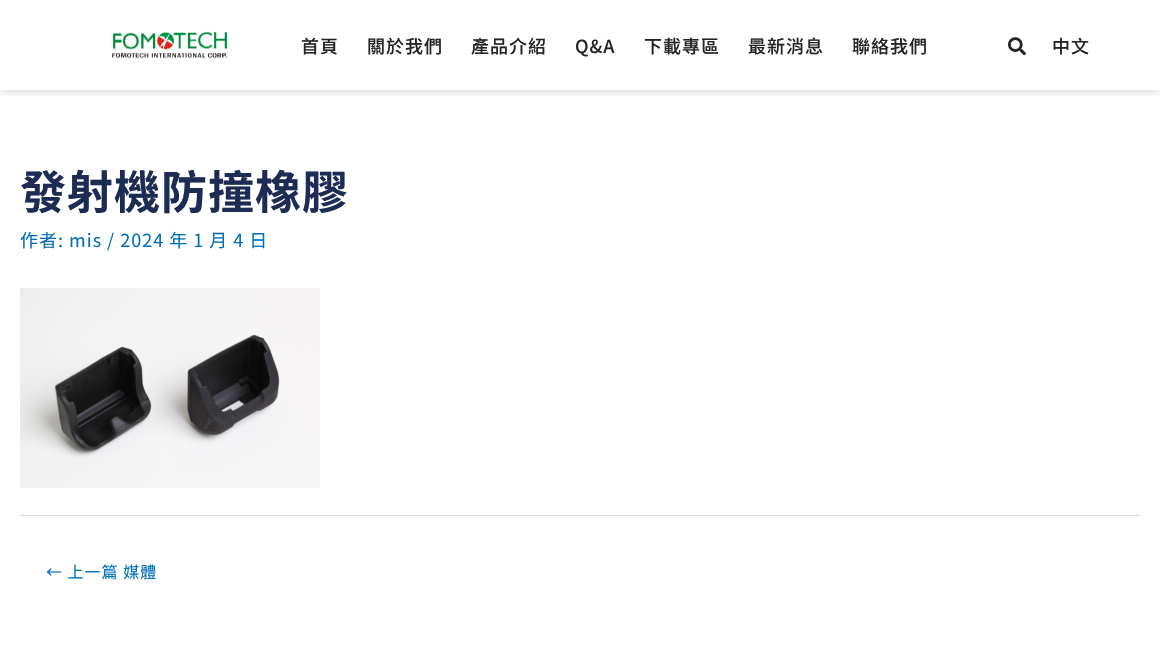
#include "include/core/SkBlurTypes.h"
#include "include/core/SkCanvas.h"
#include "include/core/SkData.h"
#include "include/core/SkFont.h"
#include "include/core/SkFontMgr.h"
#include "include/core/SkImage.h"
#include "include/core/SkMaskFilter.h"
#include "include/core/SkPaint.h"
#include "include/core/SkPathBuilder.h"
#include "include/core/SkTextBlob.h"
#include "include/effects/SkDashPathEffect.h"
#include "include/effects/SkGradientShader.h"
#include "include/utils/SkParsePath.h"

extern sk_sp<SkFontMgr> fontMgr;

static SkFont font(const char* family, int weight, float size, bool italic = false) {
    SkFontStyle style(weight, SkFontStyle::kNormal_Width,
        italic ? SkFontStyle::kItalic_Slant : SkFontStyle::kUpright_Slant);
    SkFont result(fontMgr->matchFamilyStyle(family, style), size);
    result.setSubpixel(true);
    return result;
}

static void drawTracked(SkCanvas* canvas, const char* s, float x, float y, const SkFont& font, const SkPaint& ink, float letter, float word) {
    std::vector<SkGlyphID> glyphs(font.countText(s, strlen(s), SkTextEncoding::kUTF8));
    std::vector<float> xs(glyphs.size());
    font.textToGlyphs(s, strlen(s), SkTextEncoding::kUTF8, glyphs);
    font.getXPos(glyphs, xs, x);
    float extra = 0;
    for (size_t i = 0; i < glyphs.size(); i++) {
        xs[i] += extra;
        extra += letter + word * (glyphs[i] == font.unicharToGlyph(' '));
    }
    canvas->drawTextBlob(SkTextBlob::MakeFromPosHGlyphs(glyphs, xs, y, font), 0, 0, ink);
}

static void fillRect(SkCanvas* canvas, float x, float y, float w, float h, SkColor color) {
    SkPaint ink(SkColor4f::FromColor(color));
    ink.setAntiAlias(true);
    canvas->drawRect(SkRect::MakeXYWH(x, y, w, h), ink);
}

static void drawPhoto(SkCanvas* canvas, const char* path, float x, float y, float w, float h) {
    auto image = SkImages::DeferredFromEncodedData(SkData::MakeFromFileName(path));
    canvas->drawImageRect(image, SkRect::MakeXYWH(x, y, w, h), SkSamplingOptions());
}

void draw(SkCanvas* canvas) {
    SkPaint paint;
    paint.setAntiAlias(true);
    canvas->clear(0xFFFFFFFF);
    canvas->save();
    canvas->clipRect(SkRect::MakeXYWH(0, 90, 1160, 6));
    paint.setColor(0x33000000);
    paint.setMaskFilter(SkMaskFilter::MakeBlur(kNormal_SkBlurStyle, 5));
    canvas->drawRect(SkRect::MakeXYWH(0, 0, 1160, 90), paint);
    paint.setMaskFilter(nullptr);
    canvas->restore();
    drawPhoto(canvas, "assets/img1.png", 112, 31, 115, 28);
    SkFont font1 = font("Noto Sans TC", 500, 18);
    paint.setColor(0xFF242424);
    drawTracked(canvas, "首頁", 301, 53, font1, paint, 1, 0);
    drawTracked(canvas, "關於我們", 367, 53, font1, paint, 1, 0);
    drawTracked(canvas, "產品介紹", 471, 53, font1, paint, 1, 0);
    drawTracked(canvas, "Q&A", 575, 53, font1, paint, 1, 0);
    drawTracked(canvas, "下載專區", 644, 53, font1, paint, 1, 0);
    drawTracked(canvas, "最新消息", 748, 53, font1, paint, 1, 0);
    drawTracked(canvas, "聯絡我們", 852, 53, font1, paint, 1, 0);
    drawPhoto(canvas, "assets/img2.png", 1008, 37, 18, 19);
    drawTracked(canvas, "中文", 1052, 53, font1, paint, 1, 0);
    SkFont font2 = font("Noto Sans TC", 700, 46);
    paint.setColor(0xFF1C2C54);
    drawTracked(canvas, "發射機防撞橡膠", 20, 209, font2, paint, 1, 0);
    SkFont font3 = font("Noto Sans TC", 400, 18);
    paint.setColor(0xFF0170B9);
    drawTracked(canvas, "作者: mis / 2024 年 1 月 4 日", 20, 247, font3, paint, 1, 0);
    drawPhoto(canvas, "assets/img3.png", 20, 288, 300, 200);
    fillRect(canvas, 20, 515, 1120, 1, 0xFFDDDDDD);
    SkFont font4 = font("Noto Sans TC", 400, 16);
    drawTracked(canvas, "← 上一篇 媒體", 46, 578, font4, paint, 1, 0);
}
